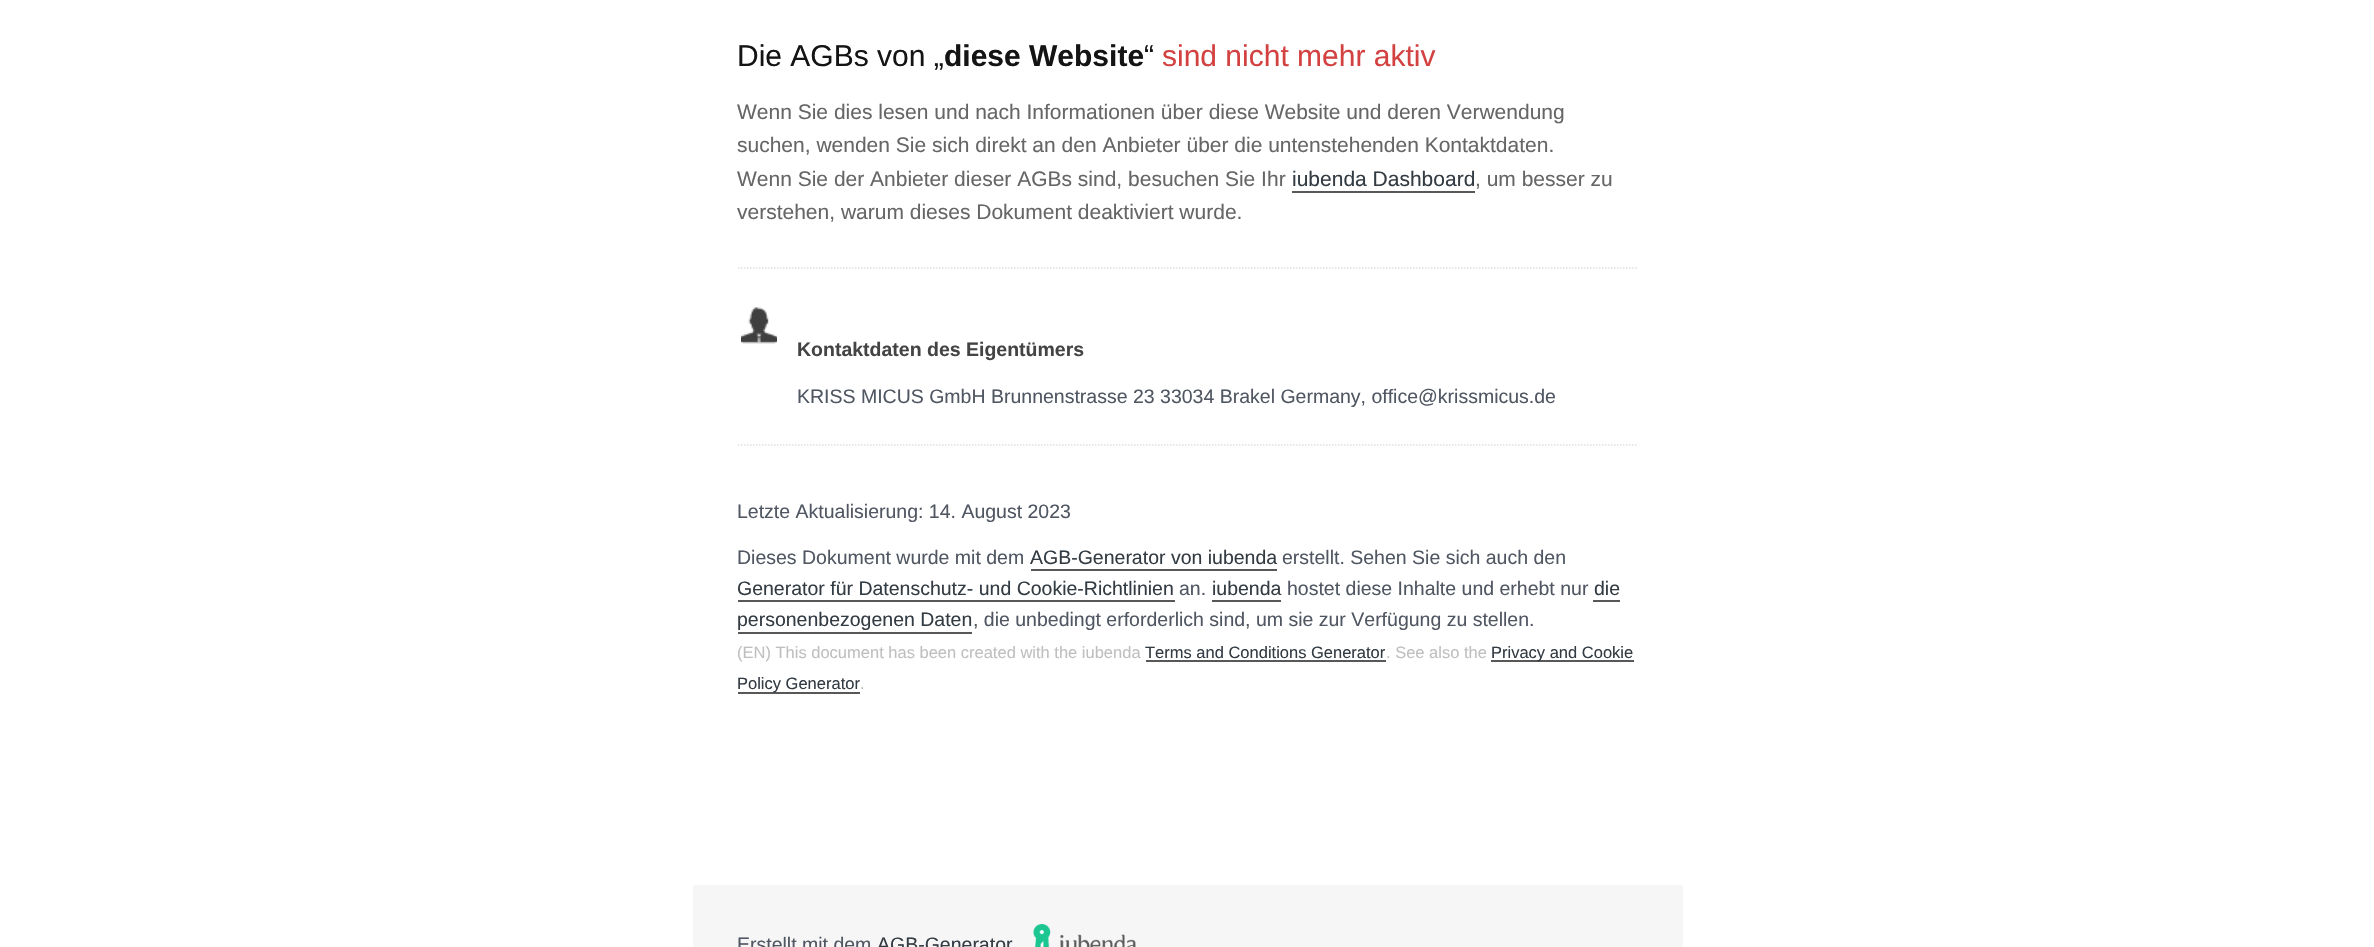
#include "include/core/SkBlurTypes.h"
#include "include/core/SkCanvas.h"
#include "include/core/SkData.h"
#include "include/core/SkFont.h"
#include "include/core/SkFontMgr.h"
#include "include/core/SkImage.h"
#include "include/core/SkMaskFilter.h"
#include "include/core/SkPaint.h"
#include "include/core/SkPathBuilder.h"
#include "include/core/SkTextBlob.h"
#include "include/effects/SkDashPathEffect.h"
#include "include/effects/SkGradientShader.h"
#include "include/utils/SkParsePath.h"

extern sk_sp<SkFontMgr> fontMgr;

static SkFont font(const char* family, int weight, float size, bool italic = false) {
    SkFontStyle style(weight, SkFontStyle::kNormal_Width,
        italic ? SkFontStyle::kItalic_Slant : SkFontStyle::kUpright_Slant);
    SkFont result(fontMgr->matchFamilyStyle(family, style), size);
    result.setSubpixel(true);
    return result;
}

static void drawLabel(SkCanvas* canvas, const char* s, float x, float y, const SkFont& font, SkColor color) {
    SkPaint ink(SkColor4f::FromColor(color));
    ink.setAntiAlias(true);
    canvas->drawString(s, x, y, font, ink);
}

static void fillRect(SkCanvas* canvas, float x, float y, float w, float h, SkColor color) {
    SkPaint ink(SkColor4f::FromColor(color));
    ink.setAntiAlias(true);
    canvas->drawRect(SkRect::MakeXYWH(x, y, w, h), ink);
}

static void drawPhoto(SkCanvas* canvas, const char* path, float x, float y, float w, float h) {
    auto image = SkImages::DeferredFromEncodedData(SkData::MakeFromFileName(path));
    canvas->drawImageRect(image, SkRect::MakeXYWH(x, y, w, h), SkSamplingOptions());
}

static SkPath parsePath(const char* data, bool evenOdd = false) {
    SkPath result = *SkParsePath::FromSVGString(data);
    if (evenOdd) result.setFillType(SkPathFillType::kEvenOdd);
    return result;
}

void draw(SkCanvas* canvas) {
    SkPaint paint;
    paint.setAntiAlias(true);
    canvas->clear(0xFFFFFFFF);
    paint.setStroke(true);
    paint.setStrokeWidth(1.5f);
    paint.setColor(0xFFDFDFDF);
    paint.setPathEffect(SkDashPathEffect::Make({{1.5f, 1.5f}}, 0));
    canvas->drawPath(parsePath("M738 268H1638"), paint);
    paint.setPathEffect(nullptr);
    SkFont font1 = font("Liberation Sans", 400, 30);
    drawLabel(canvas, "Die AGBs von „", 737, 66, font1, 0xFF141414);
    SkFont font2 = font("Liberation Sans", 700, 30);
    drawLabel(canvas, "diese Website", 944, 66, font2, 0xFF141414);
    drawLabel(canvas, "“", 1144, 66, font1, 0xFF141414);
    drawLabel(canvas, "sind nicht mehr aktiv", 1162, 66, font1, 0xFFD34141);
    SkFont font3 = font("Liberation Sans", 400, 21);
    drawLabel(canvas, "Wenn Sie dies lesen und nach Informationen über diese Website und deren Verwendung", 737, 119, font3, 0xFF666666);
    drawLabel(canvas, "suchen, wenden Sie sich direkt an den Anbieter über die untenstehenden Kontaktdaten.", 737, 152, font3, 0xFF666666);
    drawLabel(canvas, "Wenn Sie der Anbieter dieser AGBs sind, besuchen Sie Ihr", 737, 186, font3, 0xFF666666);
    drawLabel(canvas, "iubenda Dashboard", 1292, 186, font3, 0xFF333B43);
    fillRect(canvas, 1292, 191, 183, 2, 0xFF595858);
    drawLabel(canvas, ", um besser zu", 1475, 186, font3, 0xFF666666);
    drawLabel(canvas, "verstehen, warum dieses Dokument deaktiviert wurde.", 737, 219, font3, 0xFF666666);
    paint.setPathEffect(SkDashPathEffect::Make({{1.5f, 1.5f}}, 0));
    canvas->drawPath(parsePath("M738 445H1638"), paint);
    paint.setPathEffect(nullptr);
    drawPhoto(canvas, "assets/img1.png", 741, 307, 36, 37);
    SkFont font4 = font("Liberation Sans", 700, 19.5f);
    drawLabel(canvas, "Kontaktdaten des Eigentümers", 797, 356, font4, 0xFF444444);
    SkFont font5 = font("Liberation Sans", 400, 19.5f);
    drawLabel(canvas, "KRISS MICUS GmbH Brunnenstrasse 23 33034 Brakel Germany, office@krissmicus.de", 797, 403, font5, 0xFF505762);
    drawLabel(canvas, "Letzte Aktualisierung: 14. August 2023", 737, 518, font5, 0xFF505762);
    drawLabel(canvas, "Dieses Dokument wurde mit dem", 737, 564, font5, 0xFF505762);
    drawLabel(canvas, "AGB-Generator von iubenda", 1030, 564, font5, 0xFF333B43);
    fillRect(canvas, 1031, 569, 246, 2, 0xFF595858);
    drawLabel(canvas, "erstellt. Sehen Sie sich auch den", 1282, 564, font5, 0xFF505762);
    drawLabel(canvas, "Generator für Datenschutz- und Cookie-Richtlinien", 737, 595, font5, 0xFF333B43);
    fillRect(canvas, 738, 600, 437, 2, 0xFF595858);
    drawLabel(canvas, "an.", 1179, 595, font5, 0xFF505762);
    drawLabel(canvas, "iubenda", 1212, 595, font5, 0xFF333B43);
    fillRect(canvas, 1212, 600, 69, 2, 0xFF595858);
    drawLabel(canvas, "hostet diese Inhalte und erhebt nur", 1287, 595, font5, 0xFF505762);
    drawLabel(canvas, "die", 1594, 595, font5, 0xFF333B43);
    fillRect(canvas, 1593, 600, 27, 2, 0xFF595858);
    drawLabel(canvas, "personenbezogenen Daten", 737, 626, font5, 0xFF333B43);
    fillRect(canvas, 738, 632, 234, 2, 0xFF595858);
    drawLabel(canvas, ", die unbedingt erforderlich sind, um sie zur Verfügung zu stellen.", 973, 626, font5, 0xFF505762);
    SkFont font6 = font("Liberation Sans", 400, 16.5f);
    drawLabel(canvas, "(EN) This document has been created with the iubenda", 737, 658, font6, 0xFFBFBFBF);
    drawLabel(canvas, "Terms and Conditions Generator", 1145, 658, font6, 0xFF333B43);
    fillRect(canvas, 1146, 660, 240, 2, 0xFF595858);
    drawLabel(canvas, ". See also the", 1386, 658, font6, 0xFFBFBFBF);
    fillRect(canvas, 1491, 660, 143, 2, 0xFF595858);
    drawLabel(canvas, "Privacy and Cookie", 1491, 658, font6, 0xFF333B43);
    fillRect(canvas, 738, 692, 122, 2, 0xFF595858);
    drawLabel(canvas, "Policy Generator", 737, 689, font6, 0xFF333B43);
    drawLabel(canvas, ".", 860, 689, font6, 0xFFBFBFBF);
    fillRect(canvas, 693, 885, 990, 62, 0xFFF6F6F6);
    drawLabel(canvas, "Erstellt mit dem", 737, 951, font5, 0xFF505762);
    drawLabel(canvas, "AGB-Generator", 877, 951, font5, 0xFF333B43);
    drawPhoto(canvas, "assets/img2.png", 1033, 924, 103, 23);
}
